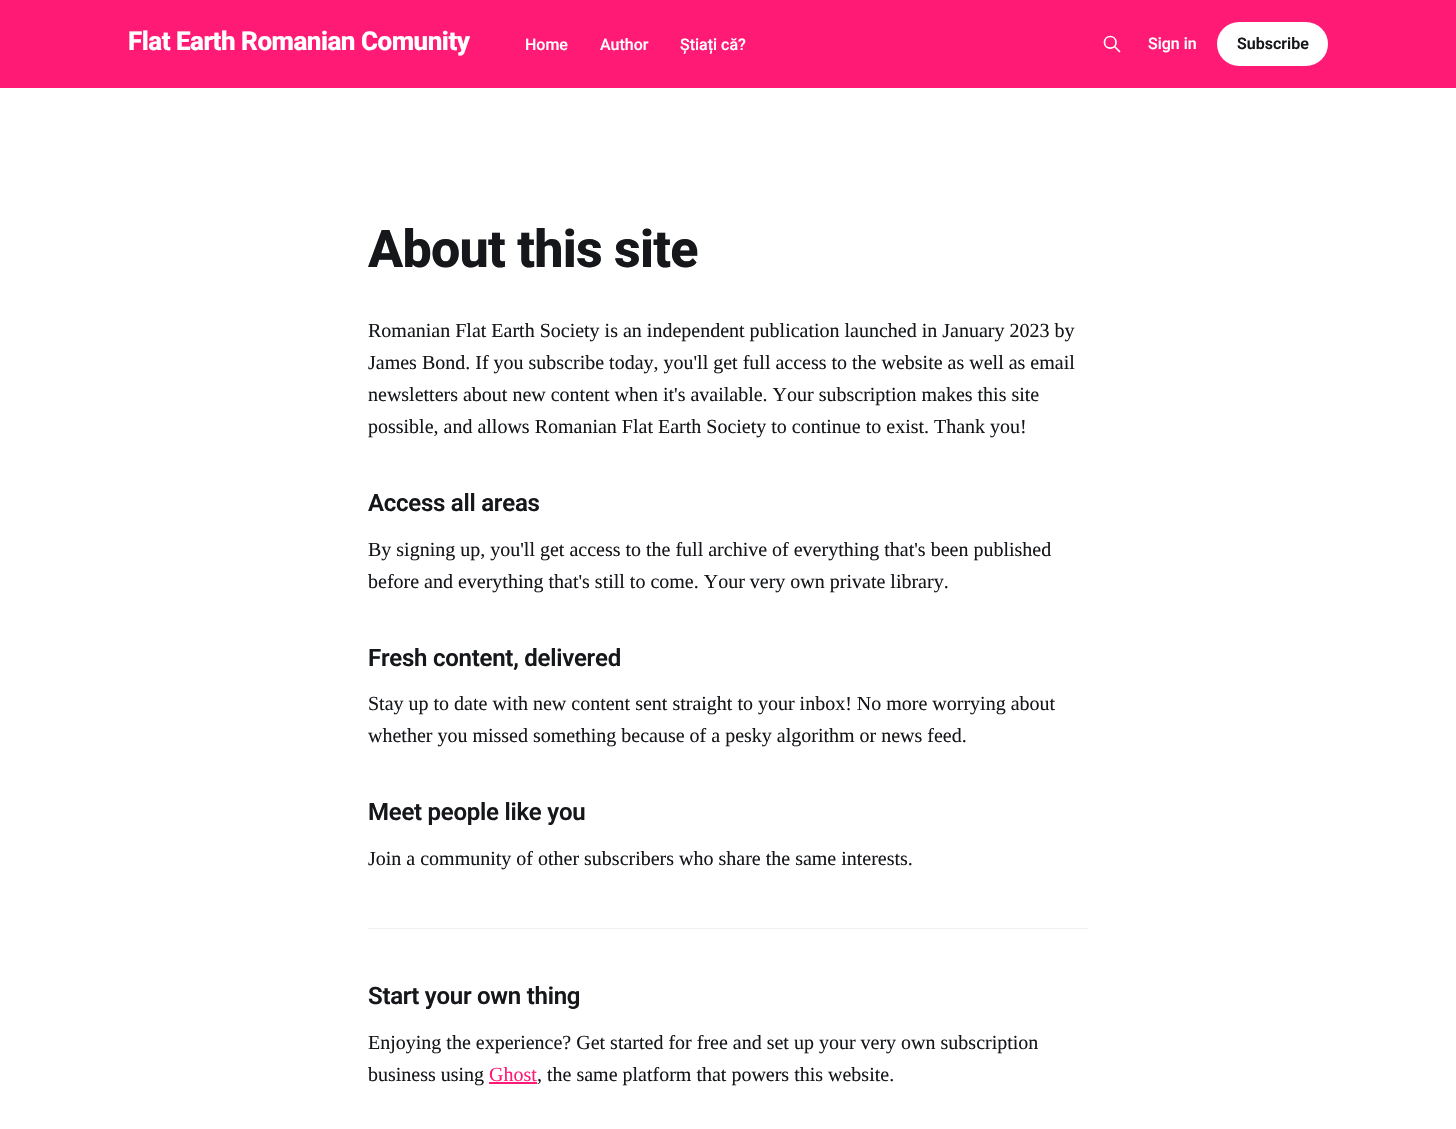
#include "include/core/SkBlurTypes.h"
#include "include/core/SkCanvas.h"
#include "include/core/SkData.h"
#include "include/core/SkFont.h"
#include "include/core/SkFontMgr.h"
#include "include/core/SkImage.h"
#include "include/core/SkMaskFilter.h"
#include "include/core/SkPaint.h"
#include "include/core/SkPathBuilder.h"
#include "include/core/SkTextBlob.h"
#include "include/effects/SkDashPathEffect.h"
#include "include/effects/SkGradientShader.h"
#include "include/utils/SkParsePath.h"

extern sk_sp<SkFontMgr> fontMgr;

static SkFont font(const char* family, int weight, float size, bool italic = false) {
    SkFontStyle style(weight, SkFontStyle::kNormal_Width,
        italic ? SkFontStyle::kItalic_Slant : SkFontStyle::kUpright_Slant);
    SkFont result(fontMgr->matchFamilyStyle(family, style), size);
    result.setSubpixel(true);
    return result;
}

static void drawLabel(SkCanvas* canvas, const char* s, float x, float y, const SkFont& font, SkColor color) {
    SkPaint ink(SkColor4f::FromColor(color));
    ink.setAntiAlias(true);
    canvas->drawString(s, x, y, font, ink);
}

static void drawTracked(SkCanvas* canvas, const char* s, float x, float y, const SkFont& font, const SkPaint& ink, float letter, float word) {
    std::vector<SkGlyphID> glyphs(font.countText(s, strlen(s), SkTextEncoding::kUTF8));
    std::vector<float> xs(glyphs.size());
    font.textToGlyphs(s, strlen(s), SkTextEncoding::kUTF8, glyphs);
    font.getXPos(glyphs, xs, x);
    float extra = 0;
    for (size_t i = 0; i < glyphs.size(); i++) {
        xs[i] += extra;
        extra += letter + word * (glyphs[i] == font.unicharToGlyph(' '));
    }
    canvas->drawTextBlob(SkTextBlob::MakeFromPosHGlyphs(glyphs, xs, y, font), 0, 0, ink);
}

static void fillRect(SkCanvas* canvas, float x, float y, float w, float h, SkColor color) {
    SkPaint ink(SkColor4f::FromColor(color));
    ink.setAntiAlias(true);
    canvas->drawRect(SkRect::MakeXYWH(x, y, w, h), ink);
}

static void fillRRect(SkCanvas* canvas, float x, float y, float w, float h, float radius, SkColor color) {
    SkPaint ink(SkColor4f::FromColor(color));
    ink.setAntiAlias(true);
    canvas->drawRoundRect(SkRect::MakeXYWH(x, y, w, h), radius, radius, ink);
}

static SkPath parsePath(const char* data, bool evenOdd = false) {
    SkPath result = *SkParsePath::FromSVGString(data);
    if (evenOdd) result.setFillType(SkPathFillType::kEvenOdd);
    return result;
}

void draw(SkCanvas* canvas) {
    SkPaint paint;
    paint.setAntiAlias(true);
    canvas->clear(0xFFFFFFFF);
    fillRect(canvas, 0, 0, 1456, 88, 0xFFFF1A75);
    SkFont font1 = font("Roboto", 800, 26);
    paint.setColor(0xFFFFFFFF);
    drawTracked(canvas, "Flat Earth Romanian Comunity", 128, 50, font1, paint, -0.5f, 0);
    SkFont font2 = font("Roboto", 500, 16);
    drawLabel(canvas, "Home", 525, 50, font2, 0xFFFFFFFF);
    drawLabel(canvas, "Author", 600, 50, font2, 0xFFFFFFFF);
    drawLabel(canvas, "Știați că?", 680, 50, font2, 0xFFFFFFFF);
    paint.setStroke(true);
    paint.setStrokeWidth(1.7f);
    paint.setStrokeCap(SkPaint::kRound_Cap);
    paint.setStrokeJoin(SkPaint::kRound_Join);
    canvas->drawPath(parsePath("M1119.5 51.5L1114.5 46.5M1116 42.5C1116 50 1104.5 50 1104.5 42.5C1104.5 34.5 1116 34.5 1116 42.5Z"), paint);
    drawLabel(canvas, "Sign in", 1148, 49, font2, 0xFFFFFFFF);
    fillRRect(canvas, 1217, 22, 111, 44, 22, 0xFFFFFFFF);
    SkFont font3 = font("Roboto", 600, 16);
    drawLabel(canvas, "Subscribe", 1237, 49, font3, 0xFF15171A);
    SkFont font4 = font("Roboto", 800, 52);
    paint.setStroke(false);
    paint.setColor(0xFF15171A);
    drawTracked(canvas, "About this site", 368, 267, font4, paint, -0.75f, 0);
    SkFont font5 = font("Liberation Serif", 400, 20);
    drawLabel(canvas, "Romanian Flat Earth Society is an independent publication launched in January 2023 by", 368, 337, font5, 0xFF15171A);
    drawLabel(canvas, "James Bond. If you subscribe today, you'll get full access to the website as well as email", 368, 369, font5, 0xFF15171A);
    drawLabel(canvas, "newsletters about new content when it's available. Your subscription makes this site", 368, 401, font5, 0xFF15171A);
    drawLabel(canvas, "possible, and allows Romanian Flat Earth Society to continue to exist. Thank you!", 368, 433, font5, 0xFF15171A);
    SkFont font6 = font("Roboto", 600, 24);
    drawTracked(canvas, "Access all areas", 368, 511, font6, paint, -0.25f, 0);
    drawLabel(canvas, "By signing up, you'll get access to the full archive of everything that's been published", 368, 556, font5, 0xFF15171A);
    drawLabel(canvas, "before and everything that's still to come. Your very own private library.", 368, 588, font5, 0xFF15171A);
    drawTracked(canvas, "Fresh content, delivered", 368, 666, font6, paint, -0.25f, 0);
    drawLabel(canvas, "Stay up to date with new content sent straight to your inbox! No more worrying about", 368, 710, font5, 0xFF15171A);
    drawLabel(canvas, "whether you missed something because of a pesky algorithm or news feed.", 368, 742, font5, 0xFF15171A);
    drawTracked(canvas, "Meet people like you", 368, 820, font6, paint, -0.25f, 0);
    drawLabel(canvas, "Join a community of other subscribers who share the same interests.", 368, 865, font5, 0xFF15171A);
    fillRect(canvas, 368, 928, 720, 1, 0xFFF0F0F0);
    drawTracked(canvas, "Start your own thing", 368, 1004, font6, paint, -0.25f, 0);
    drawLabel(canvas, "Enjoying the experience? Get started for free and set up your very own subscription", 368, 1049, font5, 0xFF15171A);
    drawLabel(canvas, "business using", 368, 1081, font5, 0xFF15171A);
    drawLabel(canvas, "Ghost", 489, 1081, font5, 0xFFFF1A75);
    fillRect(canvas, 489, 1082, 48, 2, 0xFFFF1A75);
    drawLabel(canvas, ", the same platform that powers this website.", 537, 1081, font5, 0xFF15171A);
}
